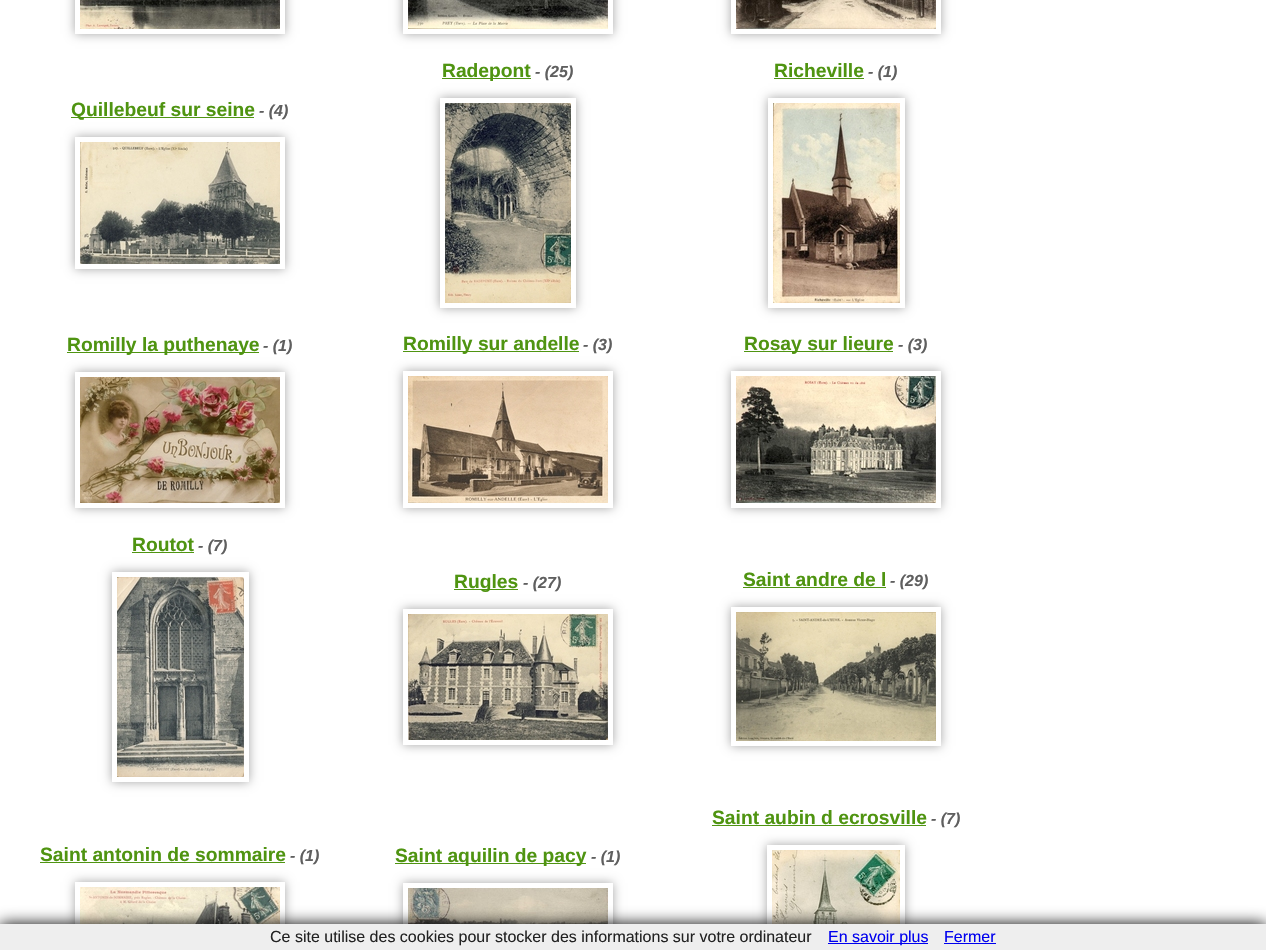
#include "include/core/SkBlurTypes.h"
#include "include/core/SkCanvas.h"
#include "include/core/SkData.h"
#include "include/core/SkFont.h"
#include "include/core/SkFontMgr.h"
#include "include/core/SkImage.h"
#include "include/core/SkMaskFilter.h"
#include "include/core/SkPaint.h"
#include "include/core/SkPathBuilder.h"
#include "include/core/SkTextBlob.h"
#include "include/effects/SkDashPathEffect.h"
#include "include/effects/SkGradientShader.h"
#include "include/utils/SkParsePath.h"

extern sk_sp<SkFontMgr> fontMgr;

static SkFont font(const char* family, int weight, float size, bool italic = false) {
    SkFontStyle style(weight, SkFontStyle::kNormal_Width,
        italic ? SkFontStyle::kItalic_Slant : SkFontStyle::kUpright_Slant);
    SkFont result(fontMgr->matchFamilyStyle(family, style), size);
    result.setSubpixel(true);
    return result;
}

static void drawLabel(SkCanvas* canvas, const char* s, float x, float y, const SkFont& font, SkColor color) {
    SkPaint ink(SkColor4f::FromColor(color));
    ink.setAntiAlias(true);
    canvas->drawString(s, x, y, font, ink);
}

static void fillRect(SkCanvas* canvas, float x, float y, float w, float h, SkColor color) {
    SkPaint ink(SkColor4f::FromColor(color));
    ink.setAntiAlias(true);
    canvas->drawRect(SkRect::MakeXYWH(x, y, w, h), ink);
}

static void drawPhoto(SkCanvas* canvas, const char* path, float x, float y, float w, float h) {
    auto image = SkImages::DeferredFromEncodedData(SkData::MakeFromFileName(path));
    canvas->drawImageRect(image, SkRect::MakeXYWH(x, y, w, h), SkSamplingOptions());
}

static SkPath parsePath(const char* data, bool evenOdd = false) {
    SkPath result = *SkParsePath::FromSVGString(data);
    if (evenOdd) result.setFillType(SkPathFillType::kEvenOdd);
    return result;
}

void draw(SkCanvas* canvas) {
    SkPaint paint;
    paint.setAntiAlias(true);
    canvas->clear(0xFFFFFFFF);
    canvas->save();
    canvas->clipPath(parsePath("M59 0H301V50H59ZM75-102H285V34H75Z", true), true);
    paint.setColor(0x59000000);
    paint.setMaskFilter(SkMaskFilter::MakeBlur(kNormal_SkBlurStyle, 5));
    canvas->drawRect(SkRect::MakeXYWH(75, -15, 210, 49), paint);
    paint.setMaskFilter(nullptr);
    canvas->restore();
    drawPhoto(canvas, "assets/img1.png", 80, 0, 200, 29);
    canvas->save();
    canvas->clipPath(parsePath("M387 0H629V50H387ZM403-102H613V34H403Z", true), true);
    paint.setMaskFilter(SkMaskFilter::MakeBlur(kNormal_SkBlurStyle, 5));
    canvas->drawRect(SkRect::MakeXYWH(403, -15, 210, 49), paint);
    paint.setMaskFilter(nullptr);
    canvas->restore();
    drawPhoto(canvas, "assets/img2.png", 408, 0, 200, 29);
    canvas->save();
    canvas->clipPath(parsePath("M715 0H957V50H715ZM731-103H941V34H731Z", true), true);
    paint.setMaskFilter(SkMaskFilter::MakeBlur(kNormal_SkBlurStyle, 5));
    canvas->drawRect(SkRect::MakeXYWH(731, -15, 210, 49), paint);
    paint.setMaskFilter(nullptr);
    canvas->restore();
    drawPhoto(canvas, "assets/img3.png", 736, 0, 200, 29);
    fillRect(canvas, 442, 78, 89, 1, 0xFF4F9411);
    SkFont font1 = font("Liberation Sans", 700, 19.25f);
    drawLabel(canvas, "Radepont", 442, 77, font1, 0xFF4F9411);
    SkFont font2 = font("Liberation Sans", 700, 16, true);
    drawLabel(canvas, "- (25)", 535, 77, font2, 0xFF5F5F5F);
    canvas->save();
    canvas->clipPath(parsePath("M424 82H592V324H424ZM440 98H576V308H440Z", true), true);
    paint.setMaskFilter(SkMaskFilter::MakeBlur(kNormal_SkBlurStyle, 5));
    canvas->drawRect(SkRect::MakeXYWH(440, 98, 136, 210), paint);
    paint.setMaskFilter(nullptr);
    canvas->restore();
    drawPhoto(canvas, "assets/img4.png", 445, 103, 126, 200);
    drawLabel(canvas, "Richeville", 774, 77, font1, 0xFF4F9411);
    fillRect(canvas, 774, 78, 90, 1, 0xFF4F9411);
    drawLabel(canvas, "- (1)", 868, 77, font2, 0xFF5F5F5F);
    canvas->save();
    canvas->clipPath(parsePath("M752 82H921V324H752ZM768 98H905V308H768Z", true), true);
    paint.setMaskFilter(SkMaskFilter::MakeBlur(kNormal_SkBlurStyle, 5));
    canvas->drawRect(SkRect::MakeXYWH(768, 98, 137, 210), paint);
    paint.setMaskFilter(nullptr);
    canvas->restore();
    drawPhoto(canvas, "assets/img5.png", 773, 103, 127, 200);
    fillRect(canvas, 71, 117, 183, 1, 0xFF4F9411);
    drawLabel(canvas, "Quillebeuf sur seine", 71, 116, font1, 0xFF4F9411);
    drawLabel(canvas, "- (4)", 259, 116, font2, 0xFF5F5F5F);
    canvas->save();
    canvas->clipPath(parsePath("M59 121H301V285H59ZM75 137H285V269H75Z", true), true);
    paint.setMaskFilter(SkMaskFilter::MakeBlur(kNormal_SkBlurStyle, 5));
    canvas->drawRect(SkRect::MakeXYWH(75, 137, 210, 132), paint);
    paint.setMaskFilter(nullptr);
    canvas->restore();
    drawPhoto(canvas, "assets/img6.png", 80, 142, 200, 122);
    fillRect(canvas, 67, 352, 192, 1, 0xFF4F9411);
    drawLabel(canvas, "Romilly la puthenaye", 67, 351, font1, 0xFF4F9411);
    drawLabel(canvas, "- (1)", 263, 351, font2, 0xFF5F5F5F);
    canvas->save();
    canvas->clipPath(parsePath("M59 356H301V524H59ZM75 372H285V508H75Z", true), true);
    paint.setMaskFilter(SkMaskFilter::MakeBlur(kNormal_SkBlurStyle, 5));
    canvas->drawRect(SkRect::MakeXYWH(75, 372, 210, 136), paint);
    paint.setMaskFilter(nullptr);
    canvas->restore();
    drawPhoto(canvas, "assets/img7.png", 80, 377, 200, 126);
    fillRect(canvas, 403, 351, 176, 1, 0xFF4F9411);
    drawLabel(canvas, "Romilly sur andelle", 403, 350, font1, 0xFF4F9411);
    drawLabel(canvas, "- (3)", 583, 350, font2, 0xFF5F5F5F);
    canvas->save();
    canvas->clipPath(parsePath("M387 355H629V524H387ZM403 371H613V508H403Z", true), true);
    paint.setMaskFilter(SkMaskFilter::MakeBlur(kNormal_SkBlurStyle, 5));
    canvas->drawRect(SkRect::MakeXYWH(403, 371, 210, 137), paint);
    paint.setMaskFilter(nullptr);
    canvas->restore();
    drawPhoto(canvas, "assets/img8.png", 408, 376, 200, 127);
    fillRect(canvas, 744, 351, 149, 1, 0xFF4F9411);
    drawLabel(canvas, "Rosay sur lieure", 744, 350, font1, 0xFF4F9411);
    drawLabel(canvas, "- (3)", 898, 350, font2, 0xFF5F5F5F);
    canvas->save();
    canvas->clipPath(parsePath("M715 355H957V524H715ZM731 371H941V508H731Z", true), true);
    paint.setMaskFilter(SkMaskFilter::MakeBlur(kNormal_SkBlurStyle, 5));
    canvas->drawRect(SkRect::MakeXYWH(731, 371, 210, 137), paint);
    paint.setMaskFilter(nullptr);
    canvas->restore();
    drawPhoto(canvas, "assets/img9.png", 736, 376, 200, 127);
    drawLabel(canvas, "Routot", 132, 551, font1, 0xFF4F9411);
    fillRect(canvas, 132, 552, 62, 1, 0xFF4F9411);
    drawLabel(canvas, "- (7)", 198, 551, font2, 0xFF5F5F5F);
    canvas->save();
    canvas->clipPath(parsePath("M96 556H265V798H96ZM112 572H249V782H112Z", true), true);
    paint.setMaskFilter(SkMaskFilter::MakeBlur(kNormal_SkBlurStyle, 5));
    canvas->drawRect(SkRect::MakeXYWH(112, 572, 137, 210), paint);
    paint.setMaskFilter(nullptr);
    canvas->restore();
    drawPhoto(canvas, "assets/img10.png", 117, 577, 127, 200);
    fillRect(canvas, 454, 589, 64, 1, 0xFF4F9411);
    drawLabel(canvas, "Rugles", 454, 588, font1, 0xFF4F9411);
    drawLabel(canvas, "- (27)", 523, 588, font2, 0xFF5F5F5F);
    canvas->save();
    canvas->clipPath(parsePath("M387 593H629V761H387ZM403 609H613V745H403Z", true), true);
    paint.setMaskFilter(SkMaskFilter::MakeBlur(kNormal_SkBlurStyle, 5));
    canvas->drawRect(SkRect::MakeXYWH(403, 609, 210, 136), paint);
    paint.setMaskFilter(nullptr);
    canvas->restore();
    drawPhoto(canvas, "assets/img11.png", 408, 614, 200, 126);
    drawLabel(canvas, "Saint andre de l", 743, 586, font1, 0xFF4F9411);
    fillRect(canvas, 743, 587, 143, 1, 0xFF4F9411);
    drawLabel(canvas, "- (29)", 890, 586, font2, 0xFF5F5F5F);
    canvas->save();
    canvas->clipPath(parsePath("M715 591H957V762H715ZM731 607H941V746H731Z", true), true);
    paint.setMaskFilter(SkMaskFilter::MakeBlur(kNormal_SkBlurStyle, 5));
    canvas->drawRect(SkRect::MakeXYWH(731, 607, 210, 139), paint);
    paint.setMaskFilter(nullptr);
    canvas->restore();
    drawPhoto(canvas, "assets/img12.png", 736, 612, 200, 129);
    drawLabel(canvas, "Saint aubin d ecrosville", 712, 824, font1, 0xFF4F9411);
    fillRect(canvas, 712, 825, 214, 1, 0xFF4F9411);
    drawLabel(canvas, "- (7)", 931, 824, font2, 0xFF5F5F5F);
    canvas->save();
    canvas->clipPath(parsePath("M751 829H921V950H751ZM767 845H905V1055H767Z", true), true);
    paint.setMaskFilter(SkMaskFilter::MakeBlur(kNormal_SkBlurStyle, 5));
    canvas->drawRect(SkRect::MakeXYWH(767, 845, 138, 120), paint);
    paint.setMaskFilter(nullptr);
    canvas->restore();
    drawPhoto(canvas, "assets/img13.png", 772, 850, 128, 74);
    drawLabel(canvas, "Saint antonin de sommaire", 40, 861, font1, 0xFF4F9411);
    fillRect(canvas, 40, 862, 245, 1, 0xFF4F9411);
    drawLabel(canvas, "- (1)", 290, 861, font2, 0xFF5F5F5F);
    canvas->save();
    canvas->clipPath(parsePath("M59 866H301V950H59ZM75 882H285V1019H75Z", true), true);
    paint.setMaskFilter(SkMaskFilter::MakeBlur(kNormal_SkBlurStyle, 5));
    canvas->drawRect(SkRect::MakeXYWH(75, 882, 210, 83), paint);
    paint.setMaskFilter(nullptr);
    canvas->restore();
    drawPhoto(canvas, "assets/img14.png", 80, 887, 200, 37);
    fillRect(canvas, 395, 863, 191, 1, 0xFF4F9411);
    drawLabel(canvas, "Saint aquilin de pacy", 395, 862, font1, 0xFF4F9411);
    drawLabel(canvas, "- (1)", 591, 862, font2, 0xFF5F5F5F);
    canvas->save();
    canvas->clipPath(parsePath("M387 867H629V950H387ZM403 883H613V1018H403Z", true), true);
    paint.setMaskFilter(SkMaskFilter::MakeBlur(kNormal_SkBlurStyle, 5));
    canvas->drawRect(SkRect::MakeXYWH(403, 883, 210, 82), paint);
    paint.setMaskFilter(nullptr);
    canvas->restore();
    drawPhoto(canvas, "assets/img15.png", 408, 888, 200, 36);
    paint.setColor(0xFF000000);
    paint.setMaskFilter(SkMaskFilter::MakeBlur(kNormal_SkBlurStyle, 8));
    canvas->drawRect(SkRect::MakeXYWH(0, 924, 1266, 26), paint);
    paint.setMaskFilter(nullptr);
    fillRect(canvas, 0, 924, 1266, 26, 0xFFEEEEEE);
    SkFont font3 = font("Liberation Sans", 400, 16);
    drawLabel(canvas, "Ce site utilise des cookies pour stocker des informations sur votre ordinateur", 270, 942, font3, 0xFF222222);
    fillRect(canvas, 828, 943, 100, 1, 0xFF0000EE);
    drawLabel(canvas, "En savoir plus", 828, 942, font3, 0xFF0000EE);
    drawLabel(canvas, "Fermer", 944, 942, font3, 0xFF0000EE);
    fillRect(canvas, 944, 943, 52, 1, 0xFF0000EE);
}
